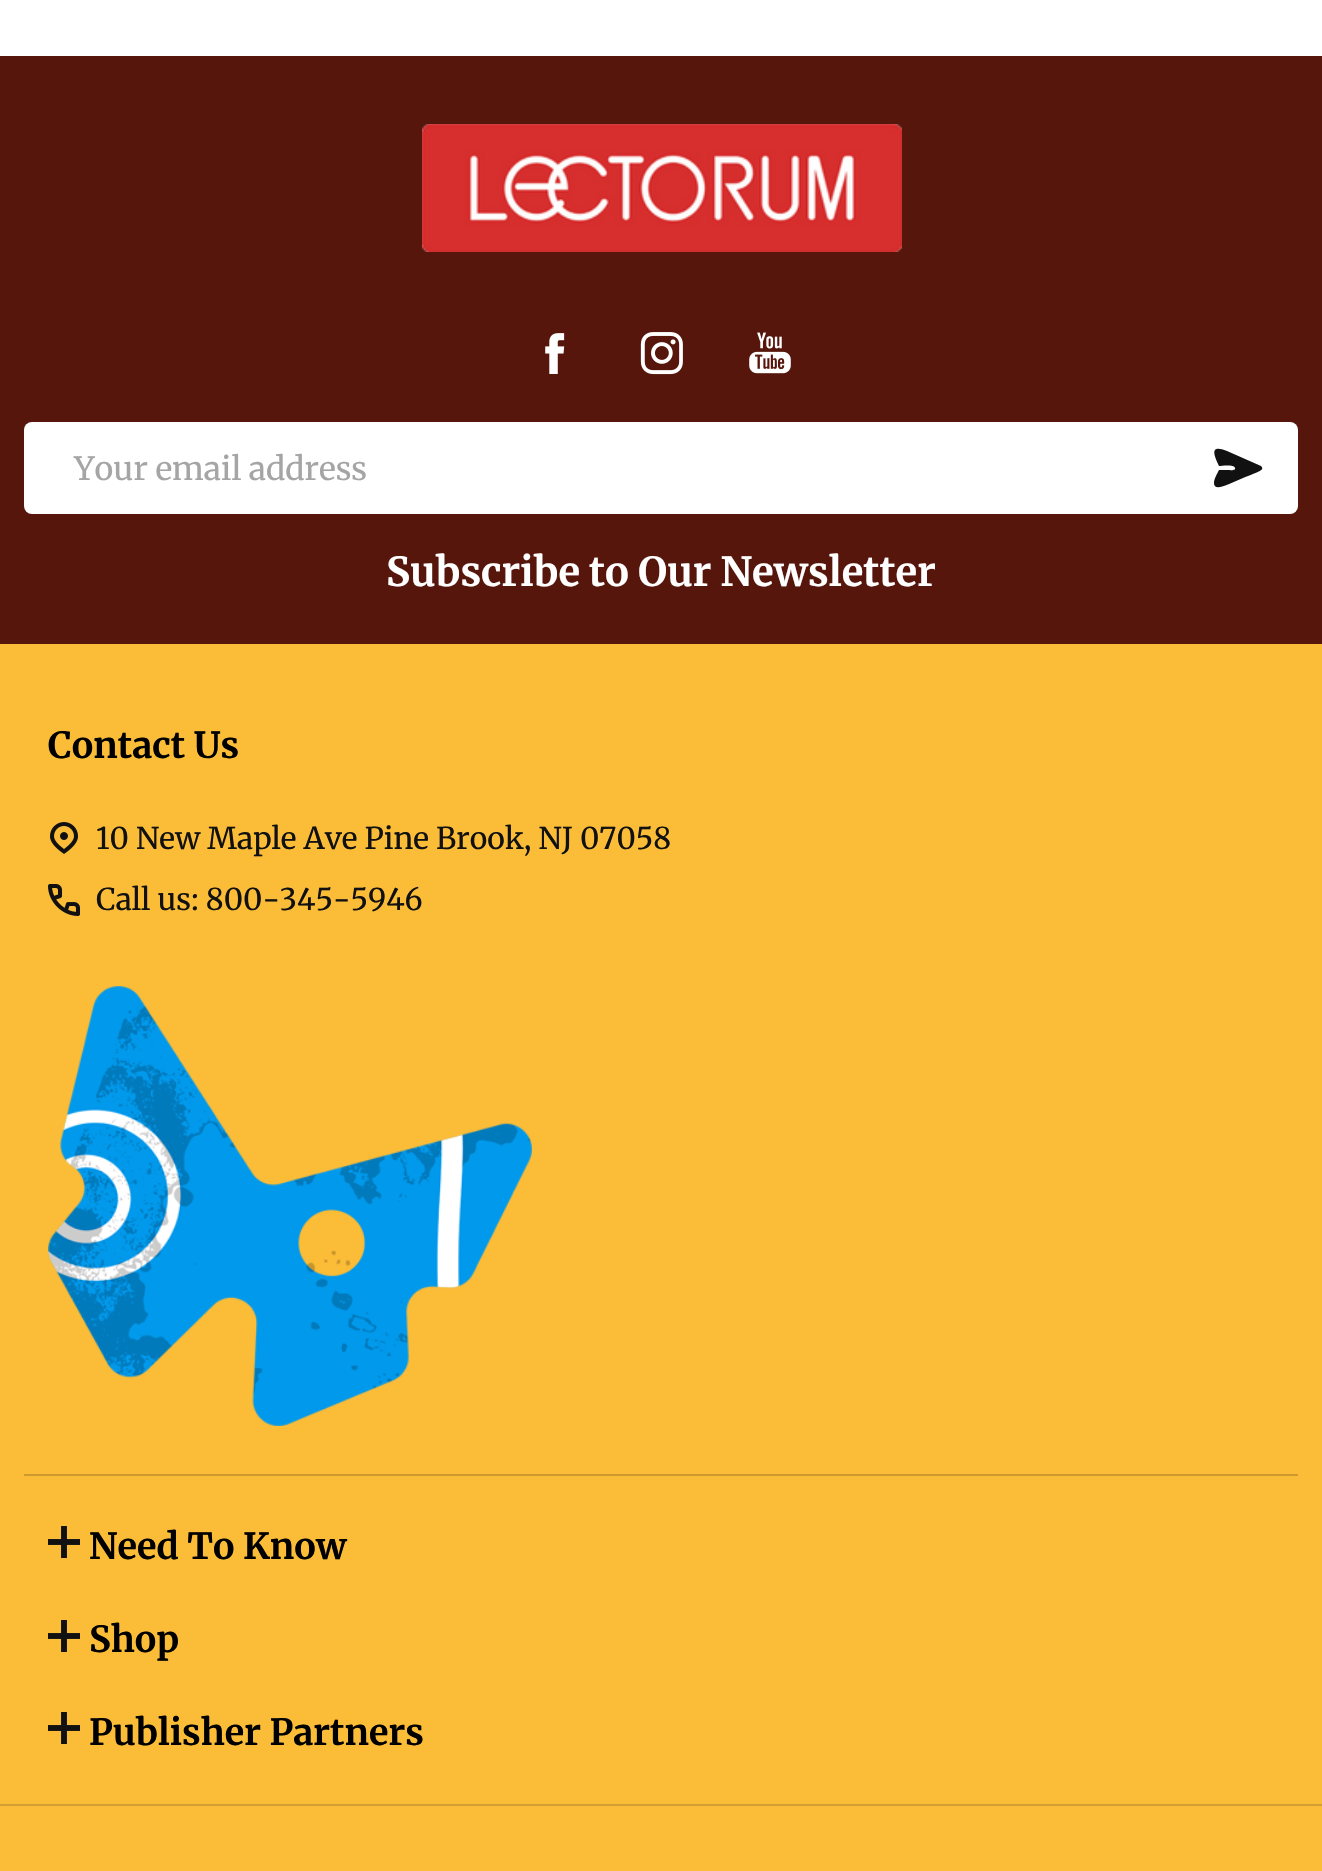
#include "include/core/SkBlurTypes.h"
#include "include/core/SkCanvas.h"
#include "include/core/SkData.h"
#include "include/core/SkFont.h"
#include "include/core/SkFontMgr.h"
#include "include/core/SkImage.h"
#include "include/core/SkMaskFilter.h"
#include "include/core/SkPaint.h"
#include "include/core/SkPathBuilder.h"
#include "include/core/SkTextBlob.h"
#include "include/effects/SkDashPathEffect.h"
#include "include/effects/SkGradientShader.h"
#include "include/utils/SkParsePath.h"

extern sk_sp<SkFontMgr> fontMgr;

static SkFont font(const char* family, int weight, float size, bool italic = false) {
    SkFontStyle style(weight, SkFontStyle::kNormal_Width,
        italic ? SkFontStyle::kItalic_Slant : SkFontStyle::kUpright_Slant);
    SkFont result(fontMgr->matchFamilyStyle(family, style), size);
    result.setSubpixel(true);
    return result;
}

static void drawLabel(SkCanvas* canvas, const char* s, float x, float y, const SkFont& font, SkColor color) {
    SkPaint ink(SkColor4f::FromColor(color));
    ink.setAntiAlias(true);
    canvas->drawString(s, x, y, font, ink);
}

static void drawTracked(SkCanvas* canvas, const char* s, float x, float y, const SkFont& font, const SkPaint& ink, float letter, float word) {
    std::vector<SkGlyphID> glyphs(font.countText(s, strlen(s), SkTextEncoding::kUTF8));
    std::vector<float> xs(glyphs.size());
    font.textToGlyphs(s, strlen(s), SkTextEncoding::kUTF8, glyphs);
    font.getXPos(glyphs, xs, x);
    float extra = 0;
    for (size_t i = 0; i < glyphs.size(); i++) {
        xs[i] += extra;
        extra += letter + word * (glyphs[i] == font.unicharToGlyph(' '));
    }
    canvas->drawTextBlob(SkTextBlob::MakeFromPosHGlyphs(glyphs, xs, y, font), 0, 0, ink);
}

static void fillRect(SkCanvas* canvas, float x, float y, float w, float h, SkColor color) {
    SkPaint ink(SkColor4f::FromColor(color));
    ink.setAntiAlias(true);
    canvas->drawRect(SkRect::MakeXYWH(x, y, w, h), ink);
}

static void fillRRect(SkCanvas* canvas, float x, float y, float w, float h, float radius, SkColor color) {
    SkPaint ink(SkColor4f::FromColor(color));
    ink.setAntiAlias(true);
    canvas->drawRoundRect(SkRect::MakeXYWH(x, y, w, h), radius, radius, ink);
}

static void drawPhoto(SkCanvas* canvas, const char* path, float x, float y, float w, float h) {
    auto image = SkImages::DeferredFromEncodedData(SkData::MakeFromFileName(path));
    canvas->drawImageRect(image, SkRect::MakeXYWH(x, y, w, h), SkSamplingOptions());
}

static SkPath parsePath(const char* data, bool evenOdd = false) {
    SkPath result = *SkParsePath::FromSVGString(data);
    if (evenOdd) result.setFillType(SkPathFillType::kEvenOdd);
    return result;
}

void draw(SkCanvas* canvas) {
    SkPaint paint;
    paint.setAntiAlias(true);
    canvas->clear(0xFFFFFFFF);
    fillRect(canvas, 0, 644, 1322, 1227, 0xFFFBBC37);
    fillRect(canvas, 0, 56, 1322, 588, 0xFF56160C);
    drawPhoto(canvas, "assets/img1.png", 422, 124, 480, 128);
    drawPhoto(canvas, "assets/img2.png", 545, 333, 20, 41);
    drawPhoto(canvas, "assets/img3.png", 640, 332, 43, 43);
    drawPhoto(canvas, "assets/img4.png", 749, 332, 42, 42);
    fillRRect(canvas, 24, 422, 1274, 92, 8, 0xFFFFFFFF);
    SkFont font1 = font("Merriweather", 400, 32);
    drawLabel(canvas, "Your email address", 74, 480, font1, 0xFFA5A5A5);
    paint.setColor(0xFF111111);
    canvas->drawPath(parsePath("M1227 451C1209 444 1214 455 1219 466C1221 466 1234 464 1235 468C1236 471 1230 470 1228 470H1219C1217 474 1214 479 1214 483C1214 493 1230 483 1243 478C1260 471 1265 470 1261 466Z"), paint);
    SkFont font2 = font("Merriweather", 700, 40);
    paint.setColor(0xFFFFFFFF);
    drawTracked(canvas, "Subscribe to Our Newsletter", 386, 586, font2, paint, 0, -0.5f);
    fillRect(canvas, 24, 1474, 1274, 2, 0xFFCC9A2F);
    SkFont font3 = font("Merriweather", 700, 36);
    drawLabel(canvas, "Contact Us", 48, 758, font3, 0xFF000000);
    drawPhoto(canvas, "assets/img5.png", 50, 822, 28, 32);
    SkFont font4 = font("Merriweather", 400, 30);
    drawLabel(canvas, "10 New Maple Ave Pine Brook, NJ 07058", 96, 849, font4, 0xFF111111);
    drawPhoto(canvas, "assets/img6.png", 48, 884, 32, 32);
    drawLabel(canvas, "Call us: 800-345-5946", 96, 910, font4, 0xFF111111);
    drawPhoto(canvas, "assets/img7.png", 48, 986, 484, 440);
    drawPhoto(canvas, "assets/img8.png", 48, 1526, 32, 32);
    drawLabel(canvas, "Need To Know", 89, 1559, font3, 0xFF000000);
    drawPhoto(canvas, "assets/img8.png", 48, 1620, 32, 32);
    drawLabel(canvas, "Shop", 89, 1652, font3, 0xFF000000);
    drawPhoto(canvas, "assets/img8.png", 48, 1712, 32, 32);
    drawLabel(canvas, "Publisher Partners", 89, 1745, font3, 0xFF000000);
    fillRect(canvas, 0, 1804, 1322, 2, 0xFFD29F35);
}
